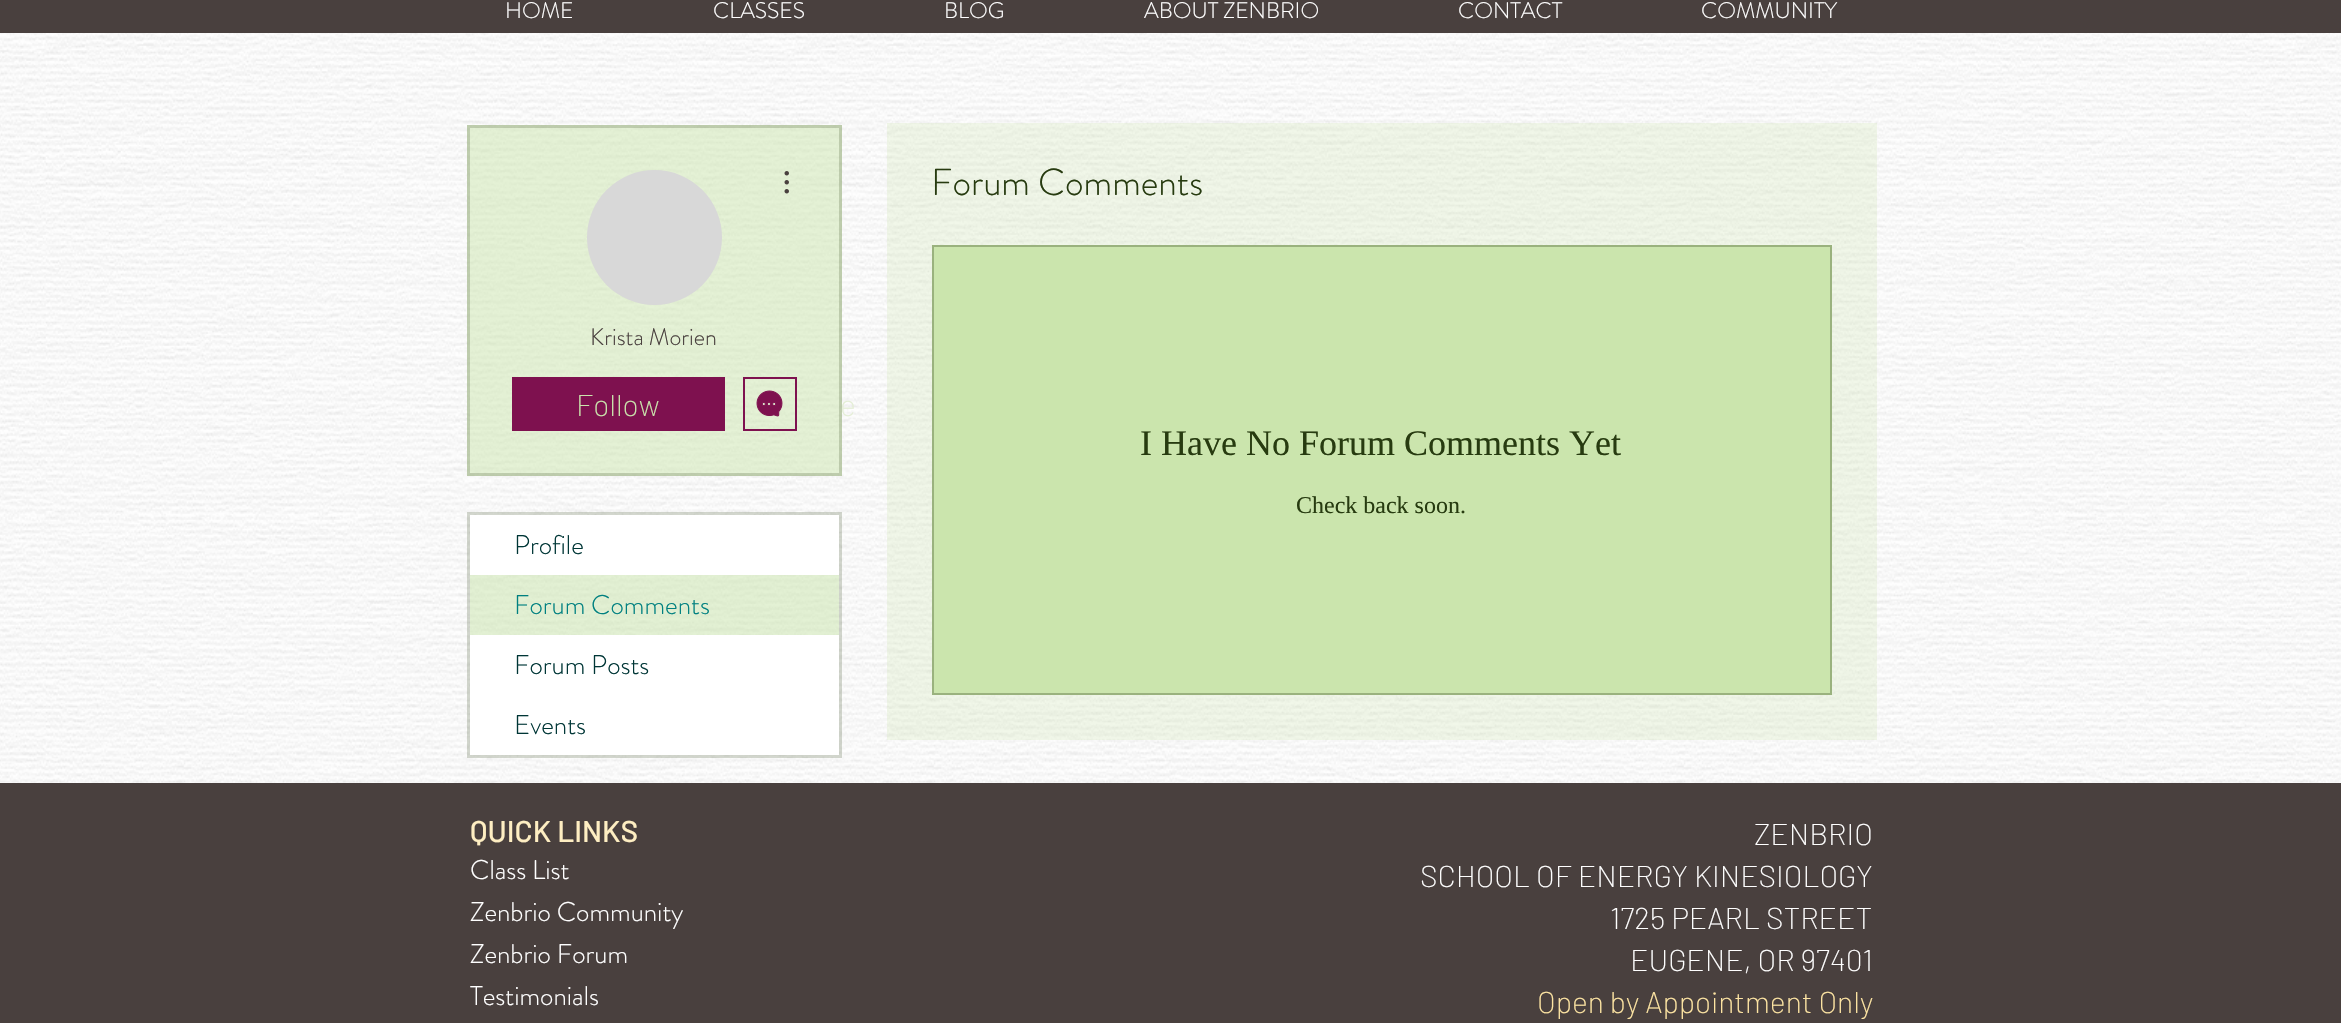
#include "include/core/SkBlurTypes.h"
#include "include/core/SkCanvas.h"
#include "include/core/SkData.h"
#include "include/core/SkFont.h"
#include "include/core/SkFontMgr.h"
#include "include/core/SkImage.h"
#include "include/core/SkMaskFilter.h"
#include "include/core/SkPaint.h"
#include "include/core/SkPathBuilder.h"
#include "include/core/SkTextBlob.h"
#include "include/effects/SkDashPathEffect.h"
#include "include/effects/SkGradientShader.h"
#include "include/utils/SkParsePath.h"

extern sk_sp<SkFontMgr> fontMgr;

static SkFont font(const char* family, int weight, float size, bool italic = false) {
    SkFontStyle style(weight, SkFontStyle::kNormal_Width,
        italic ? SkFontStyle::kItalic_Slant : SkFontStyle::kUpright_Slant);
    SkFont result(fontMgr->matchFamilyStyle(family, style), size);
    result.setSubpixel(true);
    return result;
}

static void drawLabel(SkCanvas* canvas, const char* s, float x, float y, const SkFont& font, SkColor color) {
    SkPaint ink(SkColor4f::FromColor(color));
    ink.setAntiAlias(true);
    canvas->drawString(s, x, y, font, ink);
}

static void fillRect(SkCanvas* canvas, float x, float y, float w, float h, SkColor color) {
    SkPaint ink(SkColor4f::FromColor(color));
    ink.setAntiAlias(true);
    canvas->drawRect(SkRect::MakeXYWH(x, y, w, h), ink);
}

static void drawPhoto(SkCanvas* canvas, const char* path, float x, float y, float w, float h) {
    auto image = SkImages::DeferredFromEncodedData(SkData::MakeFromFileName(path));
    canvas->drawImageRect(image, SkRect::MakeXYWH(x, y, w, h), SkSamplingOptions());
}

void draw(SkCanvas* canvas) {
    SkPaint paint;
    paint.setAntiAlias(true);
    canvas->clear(0xFFFFFFFF);
    fillRect(canvas, 0, 0, 2341, 33, 0xFF49403E);
    SkFont font1 = font("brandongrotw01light", 300, 22.5f);
    drawLabel(canvas, "HOME", 505, 18, font1, 0xFFFFFFFF);
    drawLabel(canvas, "CLASSES", 713, 18, font1, 0xFFFFFFFF);
    drawLabel(canvas, "BLOG", 944, 18, font1, 0xFFFFFFFF);
    drawLabel(canvas, "ABOUT ZENBRIO", 1144, 18, font1, 0xFFFFFFFF);
    drawLabel(canvas, "CONTACT", 1458, 18, font1, 0xFFFFFFFF);
    drawLabel(canvas, "COMMUNITY", 1701, 18, font1, 0xFFFFFFFF);
    drawPhoto(canvas, "assets/img3.png", 0, 33, 2341, 750);
    fillRect(canvas, 467, 125, 375, 351, 0x80CBE5AD);
    paint.setStroke(true);
    paint.setStrokeWidth(3);
    paint.setColor(0x33273B10);
    canvas->drawRect(SkRect::MakeXYWH(468.5f, 126.5f, 372, 348), paint);
    paint.setStroke(false);
    paint.setColor(0xFFD8D8D8);
    canvas->drawCircle(654.5f, 237.5f, 67.5f, paint);
    drawPhoto(canvas, "assets/img1.png", 784, 171, 5, 23);
    SkFont font2 = font("brandongrotw01light", 300, 24);
    drawLabel(canvas, "Krista Morien", 590, 345, font2, 0xFF49403E);
    fillRect(canvas, 512, 377, 213, 54, 0xFF7E114F);
    SkFont font3 = font("Barlow", 200, 30);
    drawLabel(canvas, "Follow", 576, 416, font3, 0xFFCBE5AD);
    paint.setStroke(true);
    paint.setStrokeWidth(2);
    paint.setColor(0xFF7E114F);
    canvas->drawRect(SkRect::MakeXYWH(744, 378, 52, 52), paint);
    drawPhoto(canvas, "assets/img2.png", 756, 390, 27, 27);
    drawLabel(canvas, "e", 840, 416, font3, 0xFFE4EED6);
    paint.setStrokeWidth(3);
    paint.setColor(0x33273B10);
    canvas->drawRect(SkRect::MakeXYWH(468.5f, 513.5f, 372, 243), paint);
    fillRect(canvas, 470, 515, 369, 60, 0xFFFFFFFF);
    SkFont font4 = font("brandongrotw01light", 300, 27);
    drawLabel(canvas, "Profile", 514, 554, font4, 0xFF003636);
    fillRect(canvas, 470, 575, 369, 60, 0x87CBE5AD);
    drawLabel(canvas, "Forum Comments", 514, 614, font4, 0xFF008080);
    fillRect(canvas, 470, 635, 369, 120, 0xFFFFFFFF);
    drawLabel(canvas, "Forum Posts", 514, 674, font4, 0xFF003636);
    drawLabel(canvas, "Events", 514, 734, font4, 0xFF003636);
    fillRect(canvas, 887, 123, 990, 617, 0x42CBE5AD);
    SkFont font5 = font("brandongrotw01light", 300, 37.5f);
    drawLabel(canvas, "Forum Comments", 931, 195, font5, 0xFF273B10);
    paint.setStroke(false);
    paint.setColor(0xFFCBE5AD);
    canvas->drawRect(SkRect::MakeXYWH(933, 246, 898, 448), paint);
    paint.setStroke(true);
    paint.setStrokeWidth(2);
    paint.setColor(0xFF9AB27E);
    canvas->drawRect(SkRect::MakeXYWH(933, 246, 898, 448), paint);
    SkFont font6 = font("Liberation Serif", 400, 36);
    drawLabel(canvas, "I Have No Forum Comments Yet", 1140, 455, font6, 0xFF273B10);
    SkFont font7 = font("Liberation Serif", 400, 24);
    drawLabel(canvas, "Check back soon.", 1296, 513, font7, 0xFF273B10);
    fillRect(canvas, 0, 783, 2341, 240, 0xFF49403E);
    SkFont font8 = font("Barlow", 500, 30);
    drawLabel(canvas, "QUICK LINKS", 470, 842, font8, 0xFFFEEEC2);
    drawLabel(canvas, "Class List", 470, 879, font4, 0xFFFFFFFF);
    drawLabel(canvas, "Zenbrio Community", 470, 921, font4, 0xFFFFFFFF);
    drawLabel(canvas, "Zenbrio Forum", 470, 963, font4, 0xFFFFFFFF);
    drawLabel(canvas, "Testimonials", 470, 1005, font4, 0xFFFFFFFF);
    drawLabel(canvas, "ZENBRIO", 1754, 845, font3, 0xFFFFFFFF);
    drawLabel(canvas, "SCHOOL OF ENERGY KINESIOLOGY", 1420, 887, font3, 0xFFFFFFFF);
    drawLabel(canvas, "1725 PEARL STREET", 1610, 929, font3, 0xFFFFFFFF);
    drawLabel(canvas, "EUGENE, OR 97401", 1630, 971, font3, 0xFFFFFFFF);
    drawLabel(canvas, "Open by Appointment Only", 1537, 1013, font3, 0xFFFEE5A3);
}
